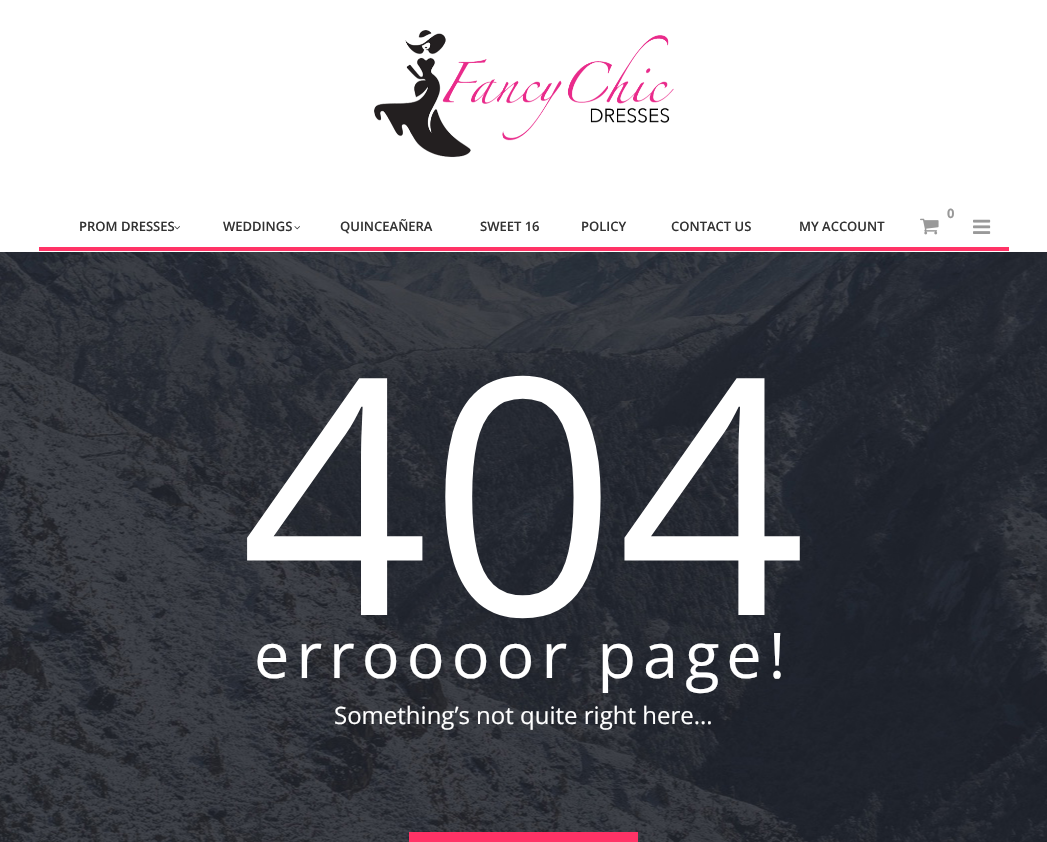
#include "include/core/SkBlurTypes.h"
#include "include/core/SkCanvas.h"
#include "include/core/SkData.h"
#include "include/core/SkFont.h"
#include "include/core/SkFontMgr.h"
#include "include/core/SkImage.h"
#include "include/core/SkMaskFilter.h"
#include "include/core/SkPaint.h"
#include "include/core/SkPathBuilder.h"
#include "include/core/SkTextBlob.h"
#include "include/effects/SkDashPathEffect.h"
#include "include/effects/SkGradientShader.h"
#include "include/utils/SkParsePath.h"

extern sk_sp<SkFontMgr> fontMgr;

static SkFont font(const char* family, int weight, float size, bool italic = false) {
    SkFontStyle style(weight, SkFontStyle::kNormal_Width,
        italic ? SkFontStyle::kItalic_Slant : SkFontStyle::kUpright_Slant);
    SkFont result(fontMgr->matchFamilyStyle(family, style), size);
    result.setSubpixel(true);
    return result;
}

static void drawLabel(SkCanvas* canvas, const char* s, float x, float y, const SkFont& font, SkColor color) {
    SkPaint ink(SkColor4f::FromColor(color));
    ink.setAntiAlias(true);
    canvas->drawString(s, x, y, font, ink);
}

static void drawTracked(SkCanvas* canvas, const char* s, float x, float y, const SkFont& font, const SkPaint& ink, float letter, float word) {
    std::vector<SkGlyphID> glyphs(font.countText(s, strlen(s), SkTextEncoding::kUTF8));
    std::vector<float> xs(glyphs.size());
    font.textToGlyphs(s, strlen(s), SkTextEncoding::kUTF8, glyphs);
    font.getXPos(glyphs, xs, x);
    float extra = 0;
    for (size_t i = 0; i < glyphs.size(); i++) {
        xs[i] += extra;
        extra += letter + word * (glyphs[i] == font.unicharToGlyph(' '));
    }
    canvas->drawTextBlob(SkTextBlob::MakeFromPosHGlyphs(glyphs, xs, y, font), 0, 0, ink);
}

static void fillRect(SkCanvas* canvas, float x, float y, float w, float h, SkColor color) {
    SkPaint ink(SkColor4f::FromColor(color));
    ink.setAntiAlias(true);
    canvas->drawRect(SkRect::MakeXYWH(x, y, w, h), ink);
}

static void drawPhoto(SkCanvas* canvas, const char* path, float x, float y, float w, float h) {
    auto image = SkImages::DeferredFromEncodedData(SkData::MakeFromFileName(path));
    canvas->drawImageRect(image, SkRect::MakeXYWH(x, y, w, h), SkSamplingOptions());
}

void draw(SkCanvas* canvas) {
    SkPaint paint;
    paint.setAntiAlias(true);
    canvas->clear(0xFFFFFFFF);
    drawPhoto(canvas, "assets/img1.png", 374, 30, 300, 128);
    fillRect(canvas, 39, 247, 970, 4, 0xFFFF3366);
    SkFont font1 = font("Open Sans", 700, 13);
    drawLabel(canvas, "0", 947, 218, font1, 0xFF999999);
    drawPhoto(canvas, "assets/img2.png", 920, 218, 19, 17);
    SkFont font2 = font("Open Sans", 600, 13);
    drawLabel(canvas, "PROM DRESSES", 79, 231, font2, 0xFF333333);
    drawPhoto(canvas, "assets/img3.png", 174, 226, 6, 4);
    drawLabel(canvas, "WEDDINGS", 223, 231, font2, 0xFF333333);
    drawPhoto(canvas, "assets/img4.png", 294, 226, 6, 4);
    drawLabel(canvas, "QUINCEAÑERA", 340, 231, font2, 0xFF333333);
    drawLabel(canvas, "SWEET 16", 480, 231, font2, 0xFF333333);
    drawLabel(canvas, "POLICY", 581, 231, font2, 0xFF333333);
    drawLabel(canvas, "CONTACT US", 671, 231, font2, 0xFF333333);
    drawLabel(canvas, "MY ACCOUNT", 799, 231, font2, 0xFF333333);
    drawPhoto(canvas, "assets/img5.png", 973, 219, 18, 15);
    drawPhoto(canvas, "assets/img6.png", 0, 252, 1047, 590);
    SkFont font3 = font("Open Sans", 400, 330);
    drawLabel(canvas, "404", 240, 615, font3, 0xFFFFFFFF);
    SkFont font4 = font("Open Sans", 400, 63);
    paint.setColor(0xFFFFFFFF);
    drawTracked(canvas, "erroooor page!", 254, 678, font4, paint, 7, 0);
    SkFont font5 = font("Open Sans", 400, 24);
    drawLabel(canvas, "Something’s not quite right here...", 334, 724, font5, 0xFFFFFFFF);
    fillRect(canvas, 409, 832, 229, 10, 0xFFFF3366);
}
